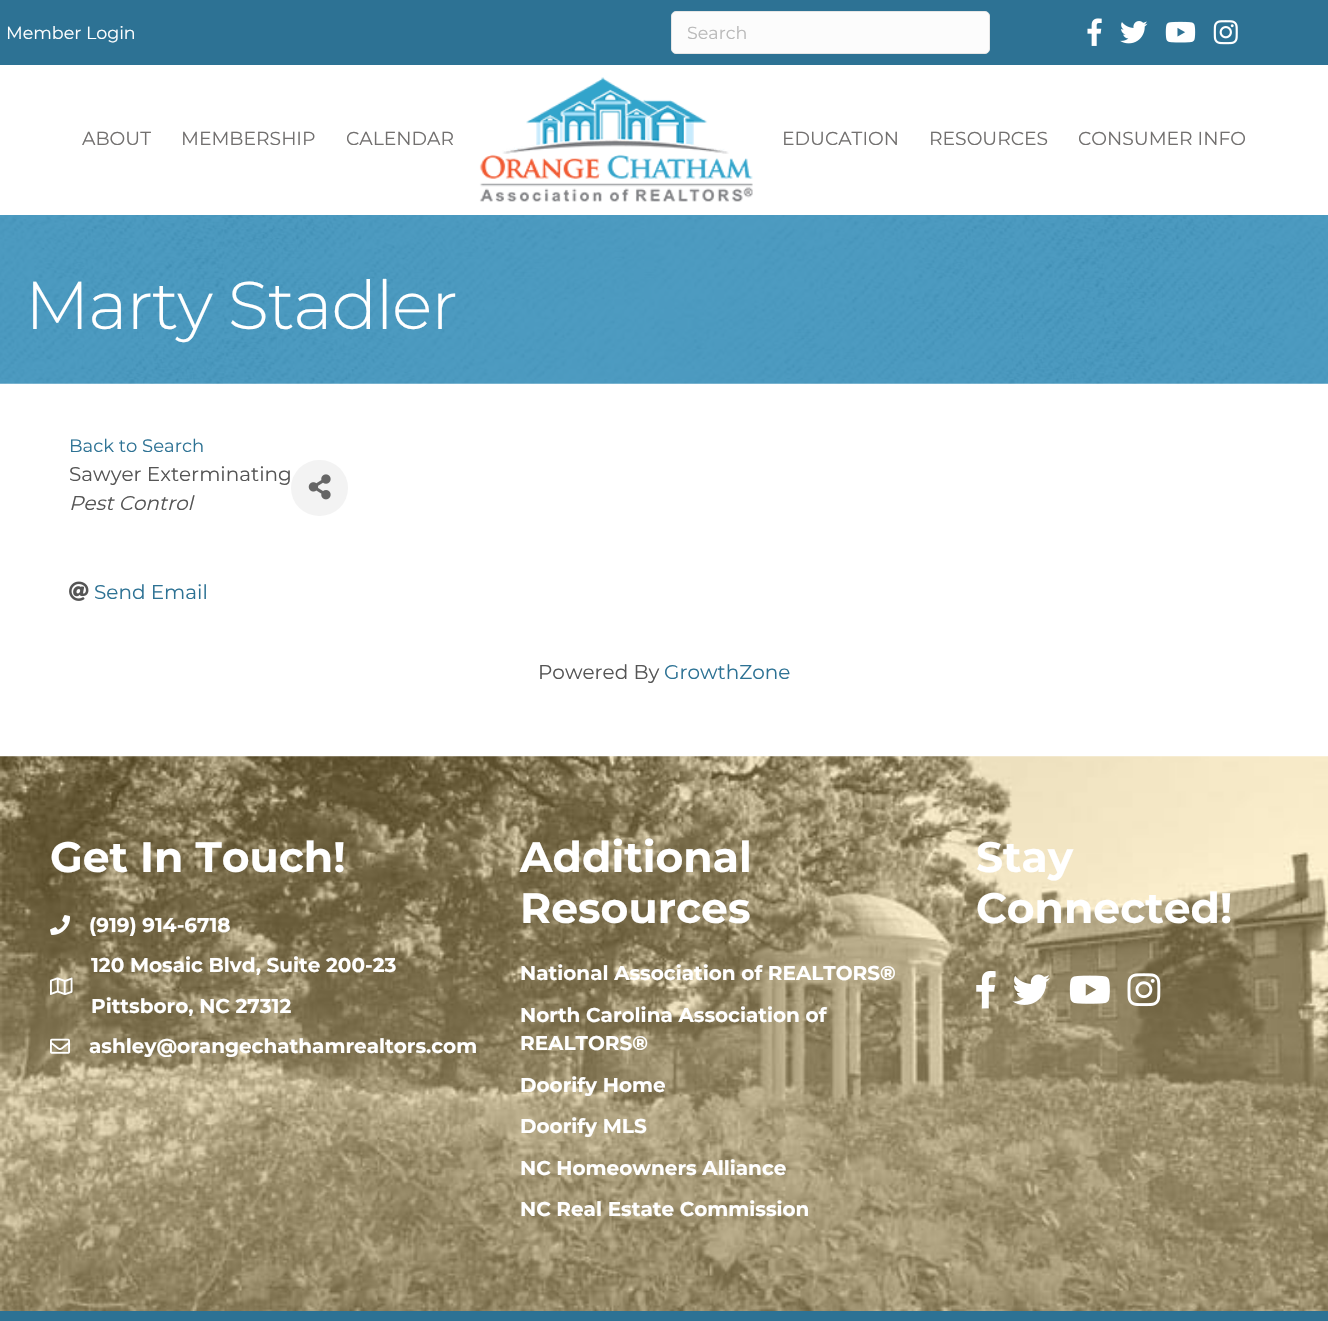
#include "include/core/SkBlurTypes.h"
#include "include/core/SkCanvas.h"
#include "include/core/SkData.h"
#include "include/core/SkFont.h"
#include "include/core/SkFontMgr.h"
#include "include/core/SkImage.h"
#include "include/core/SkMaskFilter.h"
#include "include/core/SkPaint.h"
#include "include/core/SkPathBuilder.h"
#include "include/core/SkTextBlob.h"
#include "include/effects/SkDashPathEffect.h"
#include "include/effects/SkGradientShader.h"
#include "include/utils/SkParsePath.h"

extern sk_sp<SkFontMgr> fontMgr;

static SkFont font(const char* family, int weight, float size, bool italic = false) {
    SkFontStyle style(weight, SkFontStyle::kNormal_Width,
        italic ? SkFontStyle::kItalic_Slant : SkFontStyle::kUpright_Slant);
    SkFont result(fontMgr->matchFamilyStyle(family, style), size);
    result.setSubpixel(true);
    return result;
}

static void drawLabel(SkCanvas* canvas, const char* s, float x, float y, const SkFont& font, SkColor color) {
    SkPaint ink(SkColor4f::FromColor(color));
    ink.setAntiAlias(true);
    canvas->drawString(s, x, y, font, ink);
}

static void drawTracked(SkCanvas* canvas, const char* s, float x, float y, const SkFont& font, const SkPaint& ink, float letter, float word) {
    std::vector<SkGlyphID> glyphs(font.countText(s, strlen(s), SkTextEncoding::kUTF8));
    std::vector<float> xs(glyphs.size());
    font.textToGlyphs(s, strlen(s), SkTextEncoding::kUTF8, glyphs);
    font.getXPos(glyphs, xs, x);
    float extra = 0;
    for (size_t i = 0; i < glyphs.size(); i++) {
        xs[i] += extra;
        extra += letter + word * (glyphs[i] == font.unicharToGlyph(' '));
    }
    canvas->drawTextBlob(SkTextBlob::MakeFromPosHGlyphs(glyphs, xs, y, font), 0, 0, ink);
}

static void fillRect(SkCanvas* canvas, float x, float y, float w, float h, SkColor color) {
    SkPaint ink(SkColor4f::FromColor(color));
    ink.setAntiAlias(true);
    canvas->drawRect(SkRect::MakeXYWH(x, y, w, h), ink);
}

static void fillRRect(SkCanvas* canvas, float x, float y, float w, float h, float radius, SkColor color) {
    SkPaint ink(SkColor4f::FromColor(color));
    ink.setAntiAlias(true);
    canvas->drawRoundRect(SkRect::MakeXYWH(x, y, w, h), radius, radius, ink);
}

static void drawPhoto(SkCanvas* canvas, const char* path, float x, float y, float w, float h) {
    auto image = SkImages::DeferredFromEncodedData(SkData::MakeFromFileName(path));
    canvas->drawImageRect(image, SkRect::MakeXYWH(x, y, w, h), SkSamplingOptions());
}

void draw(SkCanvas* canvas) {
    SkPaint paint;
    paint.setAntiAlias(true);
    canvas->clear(0xFFFFFFFF);
    fillRect(canvas, 0, 0, 1328, 65, 0xFF2D7294);
    SkFont font1 = font("Montserrat", 400, 17.5f);
    drawLabel(canvas, "Member Login", 6, 39, font1, 0xFFFFFFFF);
    paint.setColor(0xFFFCFCFC);
    canvas->drawRoundRect(SkRect::MakeXYWH(671.5f, 11.5f, 318, 42), 4.5f, 4.5f, paint);
    paint.setStroke(true);
    paint.setStrokeWidth(1);
    paint.setColor(0xFFE6E6E6);
    canvas->drawRoundRect(SkRect::MakeXYWH(671.5f, 11.5f, 318, 42), 4.5f, 4.5f, paint);
    drawLabel(canvas, "Search", 687, 39, font1, 0xFFB9B9B9);
    drawPhoto(canvas, "assets/img1.png", 1087, 18, 15, 28);
    drawPhoto(canvas, "assets/img2.png", 1120, 21, 28, 23);
    drawPhoto(canvas, "assets/img3.png", 1165, 21, 31, 22);
    drawPhoto(canvas, "assets/img4.png", 1213, 20, 25, 25);
    SkFont font2 = font("Montserrat", 400, 18.75f);
    drawLabel(canvas, "ABOUT", 82, 145, font2, 0xFF72706F);
    drawLabel(canvas, "MEMBERSHIP", 181, 145, font2, 0xFF72706F);
    drawLabel(canvas, "CALENDAR", 346, 145, font2, 0xFF72706F);
    drawPhoto(canvas, "assets/img5.png", 479, 77, 274, 125);
    drawLabel(canvas, "EDUCATION", 782, 145, font2, 0xFF72706F);
    drawLabel(canvas, "RESOURCES", 929, 145, font2, 0xFF72706F);
    drawLabel(canvas, "CONSUMER INFO", 1078, 145, font2, 0xFF72706F);
    drawPhoto(canvas, "assets/img6.png", 0, 215, 1328, 169);
    SkFont font3 = font("Montserrat", 300, 67.5f);
    paint.setStroke(false);
    paint.setColor(0xFFFFFFFF);
    drawTracked(canvas, "Marty Stadler", 25, 329, font3, paint, -1.25f, 0);
    SkFont font4 = font("Montserrat", 400, 18);
    drawLabel(canvas, "Back to Search", 69, 452, font4, 0xFF2D7294);
    SkFont font5 = font("Montserrat", 400, 20);
    drawLabel(canvas, "Sawyer Exterminating", 69, 481, font5, 0xFF555555);
    SkFont font6 = font("Montserrat", 400, 20, true);
    drawLabel(canvas, "Pest Control", 69, 510, font6, 0xFF555555);
    fillRRect(canvas, 291, 460, 57, 56, 28, 0xFFF3F3F3);
    drawPhoto(canvas, "assets/img7.png", 308, 474, 23, 26);
    drawPhoto(canvas, "assets/img8.png", 69, 581, 20, 20);
    drawLabel(canvas, "Send Email", 94, 599, font5, 0xFF2D7294);
    drawLabel(canvas, "Powered By", 538, 679, font5, 0xFF555555);
    drawLabel(canvas, "GrowthZone", 664, 679, font5, 0xFF2D7294);
    drawPhoto(canvas, "assets/img9.png", 0, 756, 1328, 555);
    SkFont font7 = font("Montserrat", 700, 42.5f);
    drawLabel(canvas, "Get In Touch!", 50, 872, font7, 0xFFFFFFFF);
    drawPhoto(canvas, "assets/img10.png", 50, 915, 20, 20);
    SkFont font8 = font("Montserrat", 700, 20);
    drawLabel(canvas, "(919) 914-6718", 89, 932, font8, 0xFFFFFFFF);
    drawPhoto(canvas, "assets/img11.png", 50, 977, 23, 18);
    drawLabel(canvas, "120 Mosaic Blvd, Suite 200-23", 91, 972, font8, 0xFFFFFFFF);
    drawLabel(canvas, "Pittsboro, NC 27312", 91, 1013, font8, 0xFFFFFFFF);
    drawPhoto(canvas, "assets/img12.png", 50, 1038, 20, 16);
    drawLabel(canvas, "ashley@orangechathamrealtors.com", 89, 1053, font8, 0xFFFFFFFF);
    drawLabel(canvas, "Additional", 520, 872, font7, 0xFFFFFFFF);
    drawLabel(canvas, "Resources", 520, 923, font7, 0xFFFFFFFF);
    drawLabel(canvas, "National Association of REALTORS®", 520, 980, font8, 0xFFFFFFFF);
    drawLabel(canvas, "North Carolina Association of", 520, 1022, font8, 0xFFFFFFFF);
    drawLabel(canvas, "REALTORS®", 520, 1050, font8, 0xFFFFFFFF);
    drawLabel(canvas, "Doorify Home", 520, 1092, font8, 0xFFFFFFFF);
    drawLabel(canvas, "Doorify MLS", 520, 1133, font8, 0xFFFFFFFF);
    drawLabel(canvas, "NC Homeowners Alliance", 520, 1175, font8, 0xFFFFFFFF);
    drawLabel(canvas, "NC Real Estate Commission", 520, 1216, font8, 0xFFFFFFFF);
    drawLabel(canvas, "Stay", 976, 872, font7, 0xFFFFFFFF);
    drawLabel(canvas, "Connected!", 976, 923, font7, 0xFFFFFFFF);
    drawPhoto(canvas, "assets/img13.png", 976, 970, 20, 39);
    drawPhoto(canvas, "assets/img14.png", 1012, 974, 38, 31);
    drawPhoto(canvas, "assets/img15.png", 1069, 975, 41, 29);
    drawPhoto(canvas, "assets/img16.png", 1127, 973, 34, 34);
    fillRect(canvas, 0, 1311, 1328, 10, 0xFF2D7294);
}
